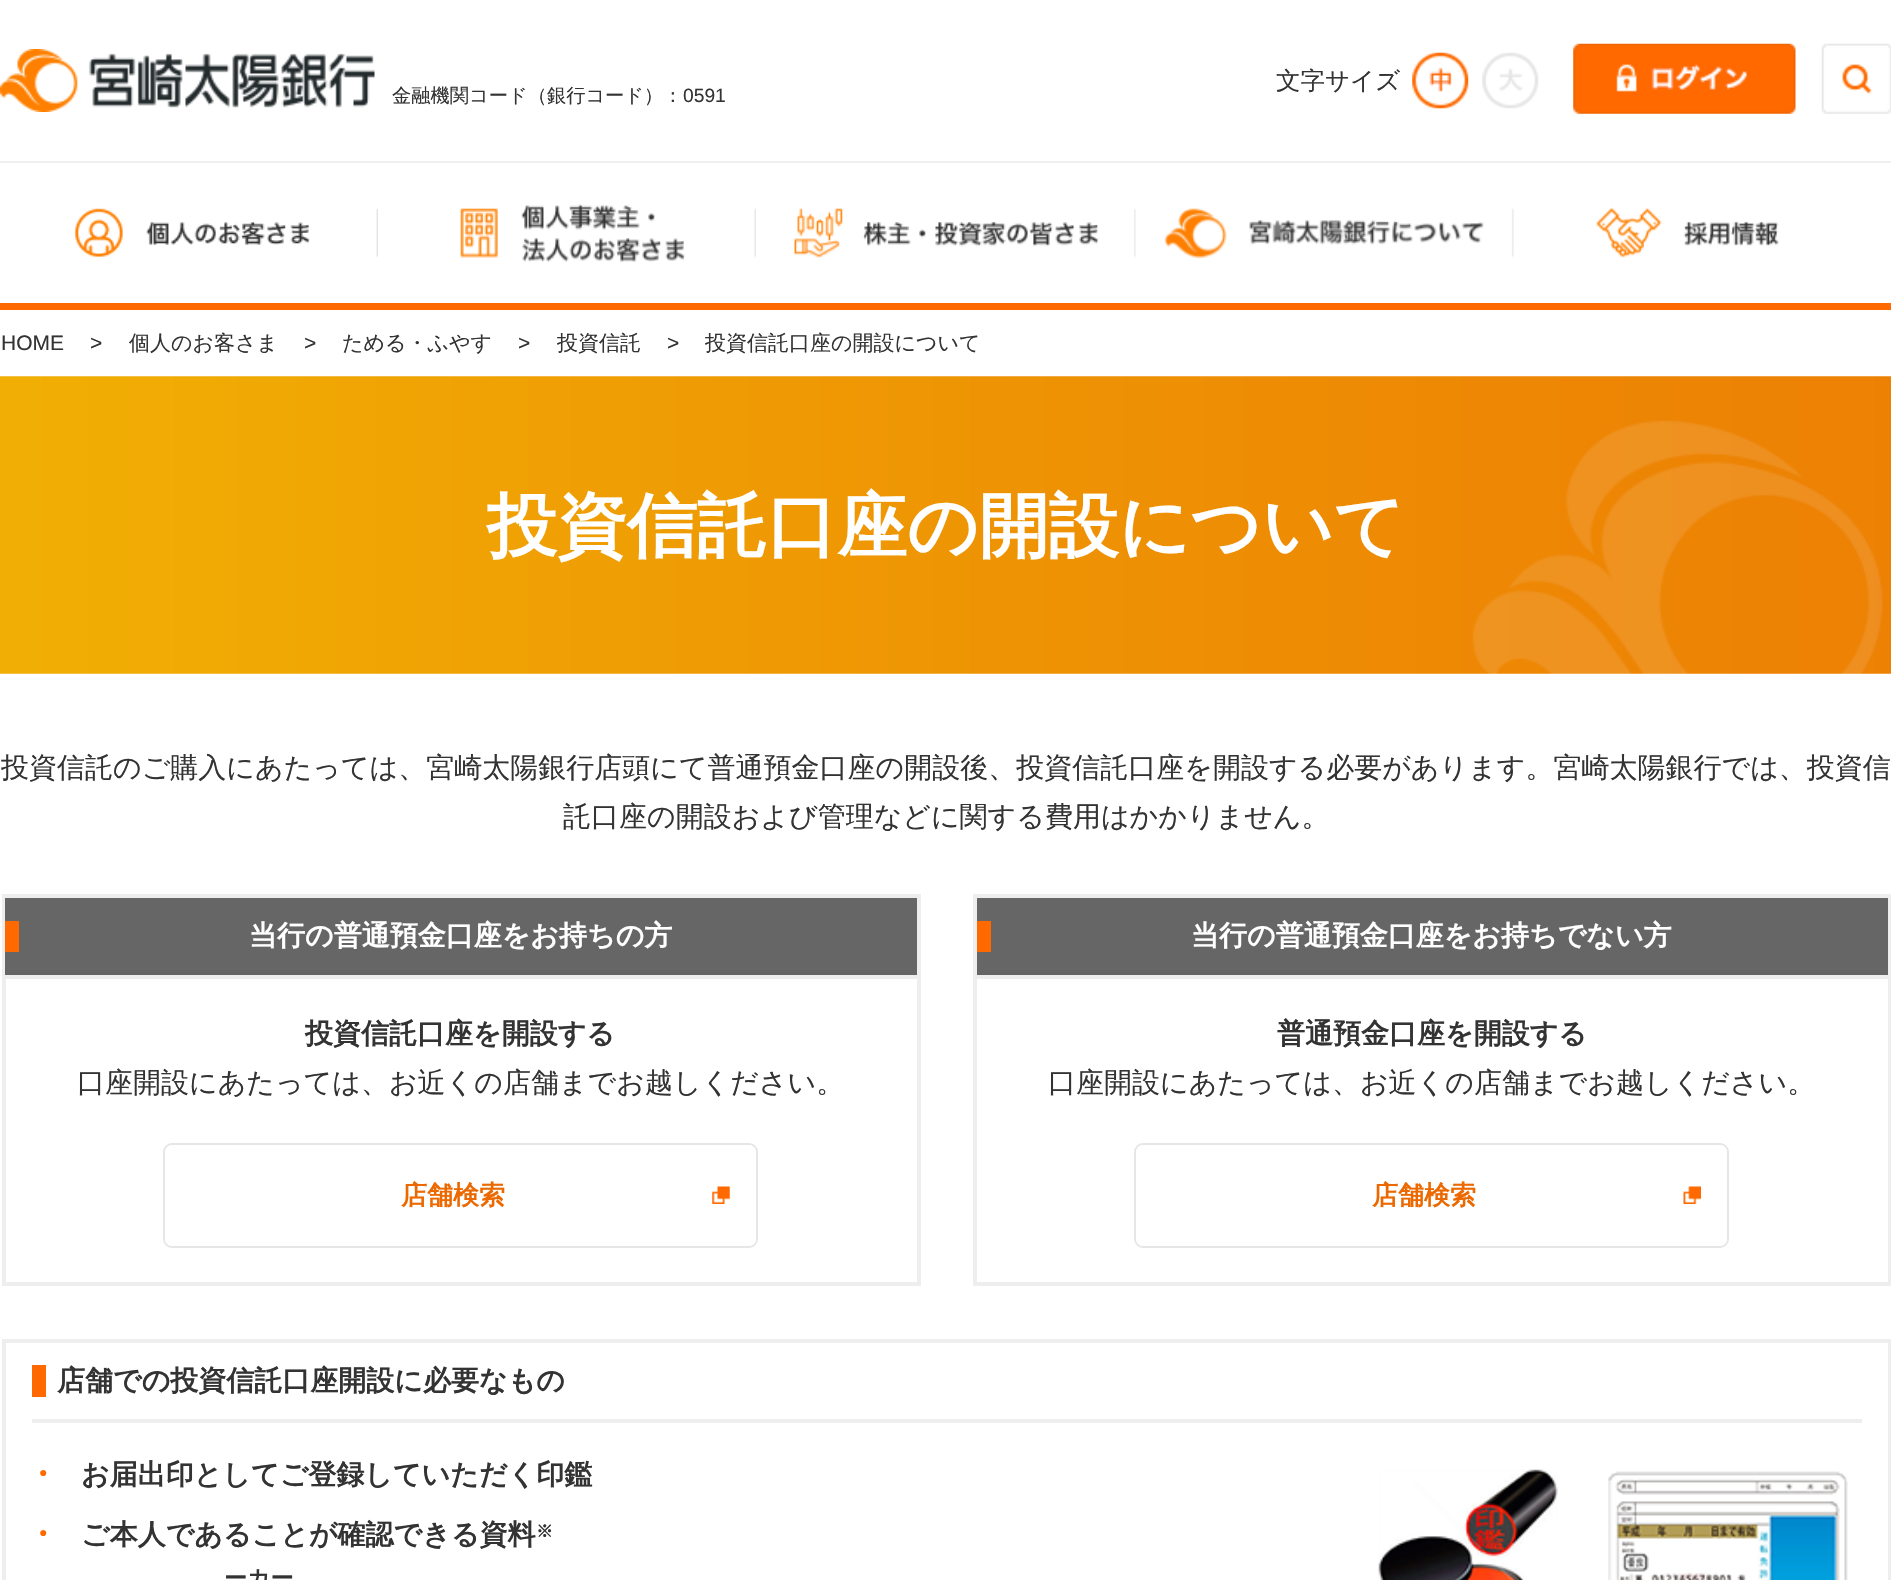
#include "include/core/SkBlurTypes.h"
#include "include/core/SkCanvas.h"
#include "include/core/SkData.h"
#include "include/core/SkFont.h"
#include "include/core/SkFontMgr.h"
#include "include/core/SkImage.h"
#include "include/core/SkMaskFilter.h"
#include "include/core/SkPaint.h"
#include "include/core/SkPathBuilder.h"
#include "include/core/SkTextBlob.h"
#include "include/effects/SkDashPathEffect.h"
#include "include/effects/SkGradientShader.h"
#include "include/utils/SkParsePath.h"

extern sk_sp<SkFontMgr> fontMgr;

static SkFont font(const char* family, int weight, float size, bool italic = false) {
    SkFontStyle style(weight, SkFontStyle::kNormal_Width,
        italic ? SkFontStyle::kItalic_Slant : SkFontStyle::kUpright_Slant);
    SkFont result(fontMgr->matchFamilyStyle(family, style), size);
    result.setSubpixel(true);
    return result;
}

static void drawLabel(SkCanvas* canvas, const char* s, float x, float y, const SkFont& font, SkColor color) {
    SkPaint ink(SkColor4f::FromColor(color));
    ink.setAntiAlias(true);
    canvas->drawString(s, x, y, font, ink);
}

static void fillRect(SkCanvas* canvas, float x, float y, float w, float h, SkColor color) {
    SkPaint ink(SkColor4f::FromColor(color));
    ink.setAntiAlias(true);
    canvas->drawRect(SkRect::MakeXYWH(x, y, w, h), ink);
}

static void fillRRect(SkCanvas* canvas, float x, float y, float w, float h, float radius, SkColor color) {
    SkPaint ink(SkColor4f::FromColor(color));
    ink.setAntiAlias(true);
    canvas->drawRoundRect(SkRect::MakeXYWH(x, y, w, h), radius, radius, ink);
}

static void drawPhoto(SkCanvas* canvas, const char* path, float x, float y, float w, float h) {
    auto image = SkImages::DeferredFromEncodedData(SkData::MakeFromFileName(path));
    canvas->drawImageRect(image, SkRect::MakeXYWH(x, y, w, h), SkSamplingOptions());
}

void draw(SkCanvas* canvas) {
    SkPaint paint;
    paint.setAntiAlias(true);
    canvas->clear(0xFFFFFFFF);
    SkFont font1 = font("WenQuanYi Zen Hei", 500, 24.5f);
    drawLabel(canvas, "文字サイズ", 1276, 89, font1, 0xFF333333);
    drawPhoto(canvas, "assets/img1.png", 1412, 52, 57, 57);
    drawPhoto(canvas, "assets/img2.png", 1482, 52, 57, 57);
    drawPhoto(canvas, "assets/img3.png", 1573, 43, 223, 71);
    drawPhoto(canvas, "assets/img4.png", 1821, 43, 70, 71);
    drawPhoto(canvas, "assets/img5.png", 0, 49, 375, 63);
    SkFont font2 = font("WenQuanYi Zen Hei", 500, 19.25f);
    drawLabel(canvas, "金融機関コード（銀行コード）：", 392, 102, font2, 0xFF333333);
    SkFont font3 = font("Liberation Sans", 400, 19.25f);
    drawLabel(canvas, "0591", 683, 102, font3, 0xFF333333);
    fillRect(canvas, 0, 161, 1891, 2, 0xFFEFEFEF);
    fillRect(canvas, 0, 303, 1891, 7, 0xFFFF6900);
    drawPhoto(canvas, "assets/img6.png", 75, 208, 303, 49);
    drawPhoto(canvas, "assets/img7.png", 460, 204, 297, 58);
    drawPhoto(canvas, "assets/img8.png", 756, 208, 380, 50);
    drawPhoto(canvas, "assets/img9.png", 1135, 208, 379, 51);
    drawPhoto(canvas, "assets/img10.png", 1596, 207, 183, 51);
    SkFont font4 = font("Liberation Sans", 400, 21);
    drawLabel(canvas, "HOME", 1, 350, font4, 0xFF333333);
    drawLabel(canvas, ">", 90, 350, font4, 0xFF333333);
    SkFont font5 = font("WenQuanYi Zen Hei", 500, 21);
    drawLabel(canvas, "個人のお客さま", 129, 350, font5, 0xFF333333);
    drawLabel(canvas, ">", 304, 350, font4, 0xFF333333);
    drawLabel(canvas, "ためる・ふやす", 342, 350, font5, 0xFF333333);
    drawLabel(canvas, ">", 518, 350, font4, 0xFF333333);
    drawLabel(canvas, "投資信託", 557, 350, font5, 0xFF333333);
    drawLabel(canvas, ">", 667, 350, font4, 0xFF333333);
    drawLabel(canvas, "投資信託口座の開設について", 705, 350, font5, 0xFF333333);
    drawPhoto(canvas, "assets/img11.png", 0, 376, 1891, 298);
    SkFont font6 = font("WenQuanYi Zen Hei", 700, 70);
    drawLabel(canvas, "投資信託口座の開設について", 487, 550, font6, 0xFFFFFFFF);
    SkFont font7 = font("WenQuanYi Zen Hei", 500, 28);
    drawLabel(canvas, "投資信託のご購入にあたっては、宮崎太陽銀行店頭にて普通預金口座の開設後、投資信託口座を開設する必要があります。宮崎太陽銀行では、投資信", 1, 777, font7, 0xFF333333);
    drawLabel(canvas, "託口座の開設および管理などに関する費用はかかりません。", 563, 826, font7, 0xFF333333);
    paint.setStroke(true);
    paint.setStrokeWidth(4);
    paint.setColor(0xFFEEEEEE);
    canvas->drawRect(SkRect::MakeXYWH(4, 896, 915, 388), paint);
    fillRect(canvas, 5, 898, 912, 77, 0xFF666666);
    fillRect(canvas, 5, 975, 912, 4, 0xFFEEEEEE);
    fillRect(canvas, 5, 921, 14, 31, 0xFFFF6900);
    SkFont font8 = font("WenQuanYi Zen Hei", 700, 28);
    drawLabel(canvas, "当行の普通預金口座をお持ちの方", 249, 945, font8, 0xFFFFFFFF);
    drawLabel(canvas, "投資信託口座を開設する", 305, 1043, font8, 0xFF333333);
    drawLabel(canvas, "口座開設にあたっては、お近くの店舗までお越しください。", 77, 1092, font7, 0xFF333333);
    paint.setStrokeWidth(2);
    paint.setColor(0xFFE6E6E6);
    canvas->drawRoundRect(SkRect::MakeXYWH(164, 1144, 593, 103), 8, 8, paint);
    fillRRect(canvas, 165, 1145, 591, 101, 7, 0xFFFFFFFF);
    drawPhoto(canvas, "assets/img12.png", 712, 1186, 18, 18);
    SkFont font9 = font("WenQuanYi Zen Hei", 700, 26);
    drawLabel(canvas, "店舗検索", 401, 1204, font9, 0xFFEB6900);
    paint.setStrokeWidth(4);
    paint.setColor(0xFFEEEEEE);
    canvas->drawRect(SkRect::MakeXYWH(975, 896, 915, 388), paint);
    fillRect(canvas, 977, 898, 911, 77, 0xFF666666);
    fillRect(canvas, 977, 975, 911, 4, 0xFFEEEEEE);
    fillRect(canvas, 977, 921, 14, 31, 0xFFFF6900);
    drawLabel(canvas, "当行の普通預金口座をお持ちでない方", 1191, 945, font8, 0xFFFFFFFF);
    drawLabel(canvas, "普通預金口座を開設する", 1277, 1043, font8, 0xFF333333);
    drawLabel(canvas, "口座開設にあたっては、お近くの店舗までお越しください。", 1048, 1092, font7, 0xFF333333);
    paint.setStrokeWidth(2);
    paint.setColor(0xFFE6E6E6);
    canvas->drawRoundRect(SkRect::MakeXYWH(1135, 1144, 593, 103), 8, 8, paint);
    fillRRect(canvas, 1136, 1145, 591, 101, 7, 0xFFFFFFFF);
    drawPhoto(canvas, "assets/img13.png", 1683, 1186, 18, 18);
    drawLabel(canvas, "店舗検索", 1372, 1204, font9, 0xFFEB6900);
    paint.setStrokeWidth(4);
    paint.setColor(0xFFEEEEEE);
    canvas->drawRect(SkRect::MakeXYWH(4, 1341, 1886, 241), paint);
    fillRect(canvas, 32, 1419, 1830, 4, 0xFFEEEEEE);
    fillRect(canvas, 32, 1365, 14, 32, 0xFFFF6900);
    drawLabel(canvas, "店舗での投資信託口座開設に必要なもの", 57, 1390, font8, 0xFF333333);
    SkFont font10 = font("Liberation Sans", 700, 14);
    drawLabel(canvas, "●", 39, 1477, font10, 0xFFFF6900);
    drawLabel(canvas, "お届出印としてご登録していただく印鑑", 81, 1484, font8, 0xFF333333);
    drawLabel(canvas, "●", 39, 1537, font10, 0xFFFF6900);
    drawLabel(canvas, "ご本人であることが確認できる資料", 81, 1544, font8, 0xFF333333);
    SkFont font11 = font("WenQuanYi Zen Hei", 700, 17);
    drawLabel(canvas, "※", 536, 1537, font11, 0xFF333333);
    SkFont font12 = font("WenQuanYi Zen Hei", 700, 23);
    drawLabel(canvas, "ーカー", 224, 1586, font12, 0xFF333333);
    drawPhoto(canvas, "assets/img14.png", 1378, 1469, 180, 111);
    drawPhoto(canvas, "assets/img15.png", 1608, 1471, 240, 109);
}
